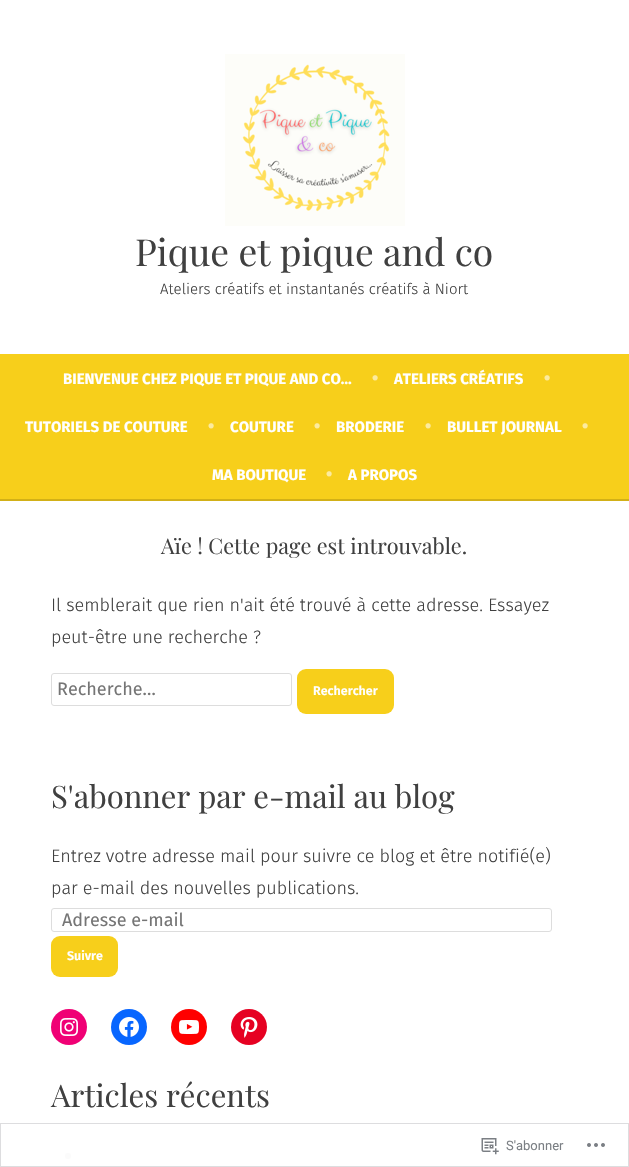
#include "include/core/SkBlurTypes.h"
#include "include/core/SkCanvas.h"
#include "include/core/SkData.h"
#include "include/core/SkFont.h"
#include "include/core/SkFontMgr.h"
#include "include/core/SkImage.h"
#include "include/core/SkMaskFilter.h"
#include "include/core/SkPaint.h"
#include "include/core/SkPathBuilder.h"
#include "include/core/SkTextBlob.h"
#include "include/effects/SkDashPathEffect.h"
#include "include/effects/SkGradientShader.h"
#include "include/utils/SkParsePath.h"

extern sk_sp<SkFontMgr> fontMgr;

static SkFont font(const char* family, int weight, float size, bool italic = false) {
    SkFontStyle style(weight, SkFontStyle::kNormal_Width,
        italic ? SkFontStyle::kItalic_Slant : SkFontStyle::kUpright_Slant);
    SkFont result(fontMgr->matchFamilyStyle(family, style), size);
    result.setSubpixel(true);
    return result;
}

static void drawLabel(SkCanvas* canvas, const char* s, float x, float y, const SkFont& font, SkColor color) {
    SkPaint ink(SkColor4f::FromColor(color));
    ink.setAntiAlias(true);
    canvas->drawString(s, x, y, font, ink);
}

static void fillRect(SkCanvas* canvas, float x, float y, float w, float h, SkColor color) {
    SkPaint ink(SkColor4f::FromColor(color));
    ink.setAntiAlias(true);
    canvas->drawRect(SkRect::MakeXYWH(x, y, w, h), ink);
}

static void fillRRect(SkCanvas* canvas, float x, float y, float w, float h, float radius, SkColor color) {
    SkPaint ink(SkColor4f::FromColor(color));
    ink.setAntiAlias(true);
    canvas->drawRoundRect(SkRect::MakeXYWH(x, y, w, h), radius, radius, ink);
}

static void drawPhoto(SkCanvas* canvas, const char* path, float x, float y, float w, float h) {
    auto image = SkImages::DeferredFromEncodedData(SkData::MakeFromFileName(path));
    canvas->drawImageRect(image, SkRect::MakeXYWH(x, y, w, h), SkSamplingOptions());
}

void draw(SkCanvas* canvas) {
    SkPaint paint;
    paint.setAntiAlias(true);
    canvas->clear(0xFFFFFFFF);
    drawPhoto(canvas, "assets/img1.png", 225, 54, 180, 172);
    SkFont font1 = font("Playfair Display", 400, 37.25f);
    drawLabel(canvas, "Pique et pique and co", 135, 266, font1, 0xFF404040);
    SkFont font2 = font("Fira Sans", 300, 15);
    drawLabel(canvas, "Ateliers créatifs et instantanés créatifs à Niort", 160, 294, font2, 0xFF404040);
    fillRect(canvas, 0, 354, 629, 145, 0xFFF7CF1B);
    fillRect(canvas, 0, 499, 629, 2, 0xFFD2B017);
    SkFont font3 = font("Fira Sans", 700, 15);
    drawLabel(canvas, "BIENVENUE CHEZ PIQUE ET PIQUE AND CO…", 63, 384, font3, 0xFFFFFFFF);
    SkFont font4 = font("Fira Sans", 700, 18);
    drawLabel(canvas, "•", 372, 384, font4, 0xFFFCEB9F);
    drawLabel(canvas, "ATELIERS CRÉATIFS", 394, 384, font3, 0xFFFFFFFF);
    drawLabel(canvas, "•", 544, 384, font4, 0xFFFCEB9F);
    drawLabel(canvas, "TUTORIELS DE COUTURE", 25, 432, font3, 0xFFFFFFFF);
    drawLabel(canvas, "•", 208, 432, font4, 0xFFFCEB9F);
    drawLabel(canvas, "COUTURE", 230, 432, font3, 0xFFFFFFFF);
    drawLabel(canvas, "•", 314, 432, font4, 0xFFFCEB9F);
    drawLabel(canvas, "BRODERIE", 336, 432, font3, 0xFFFFFFFF);
    drawLabel(canvas, "•", 425, 432, font4, 0xFFFCEB9F);
    drawLabel(canvas, "BULLET JOURNAL", 447, 432, font3, 0xFFFFFFFF);
    drawLabel(canvas, "•", 582, 432, font4, 0xFFFCEB9F);
    drawLabel(canvas, "MA BOUTIQUE", 212, 480, font3, 0xFFFFFFFF);
    drawLabel(canvas, "•", 326, 480, font4, 0xFFFCEB9F);
    drawLabel(canvas, "A PROPOS", 348, 480, font3, 0xFFFFFFFF);
    SkFont font5 = font("Playfair Display", 400, 21.6f);
    drawLabel(canvas, "Aïe ! Cette page est introuvable.", 161, 554, font5, 0xFF404040);
    SkFont font6 = font("Fira Sans", 300, 18);
    drawLabel(canvas, "Il semblerait que rien n'ait été trouvé à cette adresse. Essayez", 51, 611, font6, 0xFF404040);
    drawLabel(canvas, "peut-être une recherche ?", 51, 643, font6, 0xFF404040);
    paint.setStroke(true);
    paint.setStrokeWidth(1);
    paint.setColor(0xFFDDDDDD);
    canvas->drawRoundRect(SkRect::MakeXYWH(51.5f, 673.5f, 240, 32), 2.5f, 2.5f, paint);
    SkFont font7 = font("Fira Sans", 400, 18);
    drawLabel(canvas, "Recherche…", 57, 695, font7, 0xFF757575);
    fillRRect(canvas, 297, 669, 97, 45, 9, 0xFFF7CF1B);
    SkFont font8 = font("Fira Sans", 600, 12.5f);
    drawLabel(canvas, "Rechercher", 313, 695, font8, 0xFFFFFFFF);
    SkFont font9 = font("Playfair Display", 400, 31.1f);
    drawLabel(canvas, "S'abonner par e-mail au blog", 51, 808, font9, 0xFF404040);
    drawLabel(canvas, "Entrez votre adresse mail pour suivre ce blog et être notifié(e)", 51, 862, font6, 0xFF404040);
    drawLabel(canvas, "par e-mail des nouvelles publications.", 51, 894, font6, 0xFF404040);
    canvas->drawRoundRect(SkRect::MakeXYWH(51.5f, 908.5f, 500, 23), 2.5f, 2.5f, paint);
    drawLabel(canvas, "Adresse e-mail", 62, 926, font7, 0xFF757575);
    fillRRect(canvas, 51, 936, 67, 41, 9, 0xFFF7CF1B);
    drawLabel(canvas, "Suivre", 67, 960, font8, 0xFFFFFFFF);
    paint.setStroke(false);
    paint.setColor(0xFFF00075);
    canvas->drawCircle(69, 1027, 18, paint);
    drawPhoto(canvas, "assets/img2.png", 60, 1018, 18, 18);
    paint.setColor(0xFF0866FF);
    canvas->drawCircle(129, 1027, 18, paint);
    drawPhoto(canvas, "assets/img3.png", 119, 1017, 20, 20);
    paint.setColor(0xFFFF0000);
    canvas->drawCircle(189, 1027, 18, paint);
    drawPhoto(canvas, "assets/img4.png", 179, 1020, 20, 14);
    paint.setColor(0xFFE60122);
    canvas->drawCircle(249, 1027, 18, paint);
    drawPhoto(canvas, "assets/img5.png", 240, 1017, 18, 21);
    drawLabel(canvas, "Articles récents", 51, 1107, font9, 0xFF404040);
    paint.setColor(0xFFFBFBFB);
    canvas->drawCircle(68, 1156, 3, paint);
    paint.setStroke(true);
    paint.setColor(0xFFDDDDDF);
    canvas->drawRect(SkRect::MakeXYWH(0.5f, 1123.5f, 628, 43), paint);
    drawPhoto(canvas, "assets/img6.png", 481, 1138, 18, 17);
    SkFont font10 = font("Roboto", 400, 13);
    drawLabel(canvas, "S'abonner", 506, 1150, font10, 0xFF7B7F84);
    drawPhoto(canvas, "assets/img7.png", 587, 1143, 18, 4);
}
